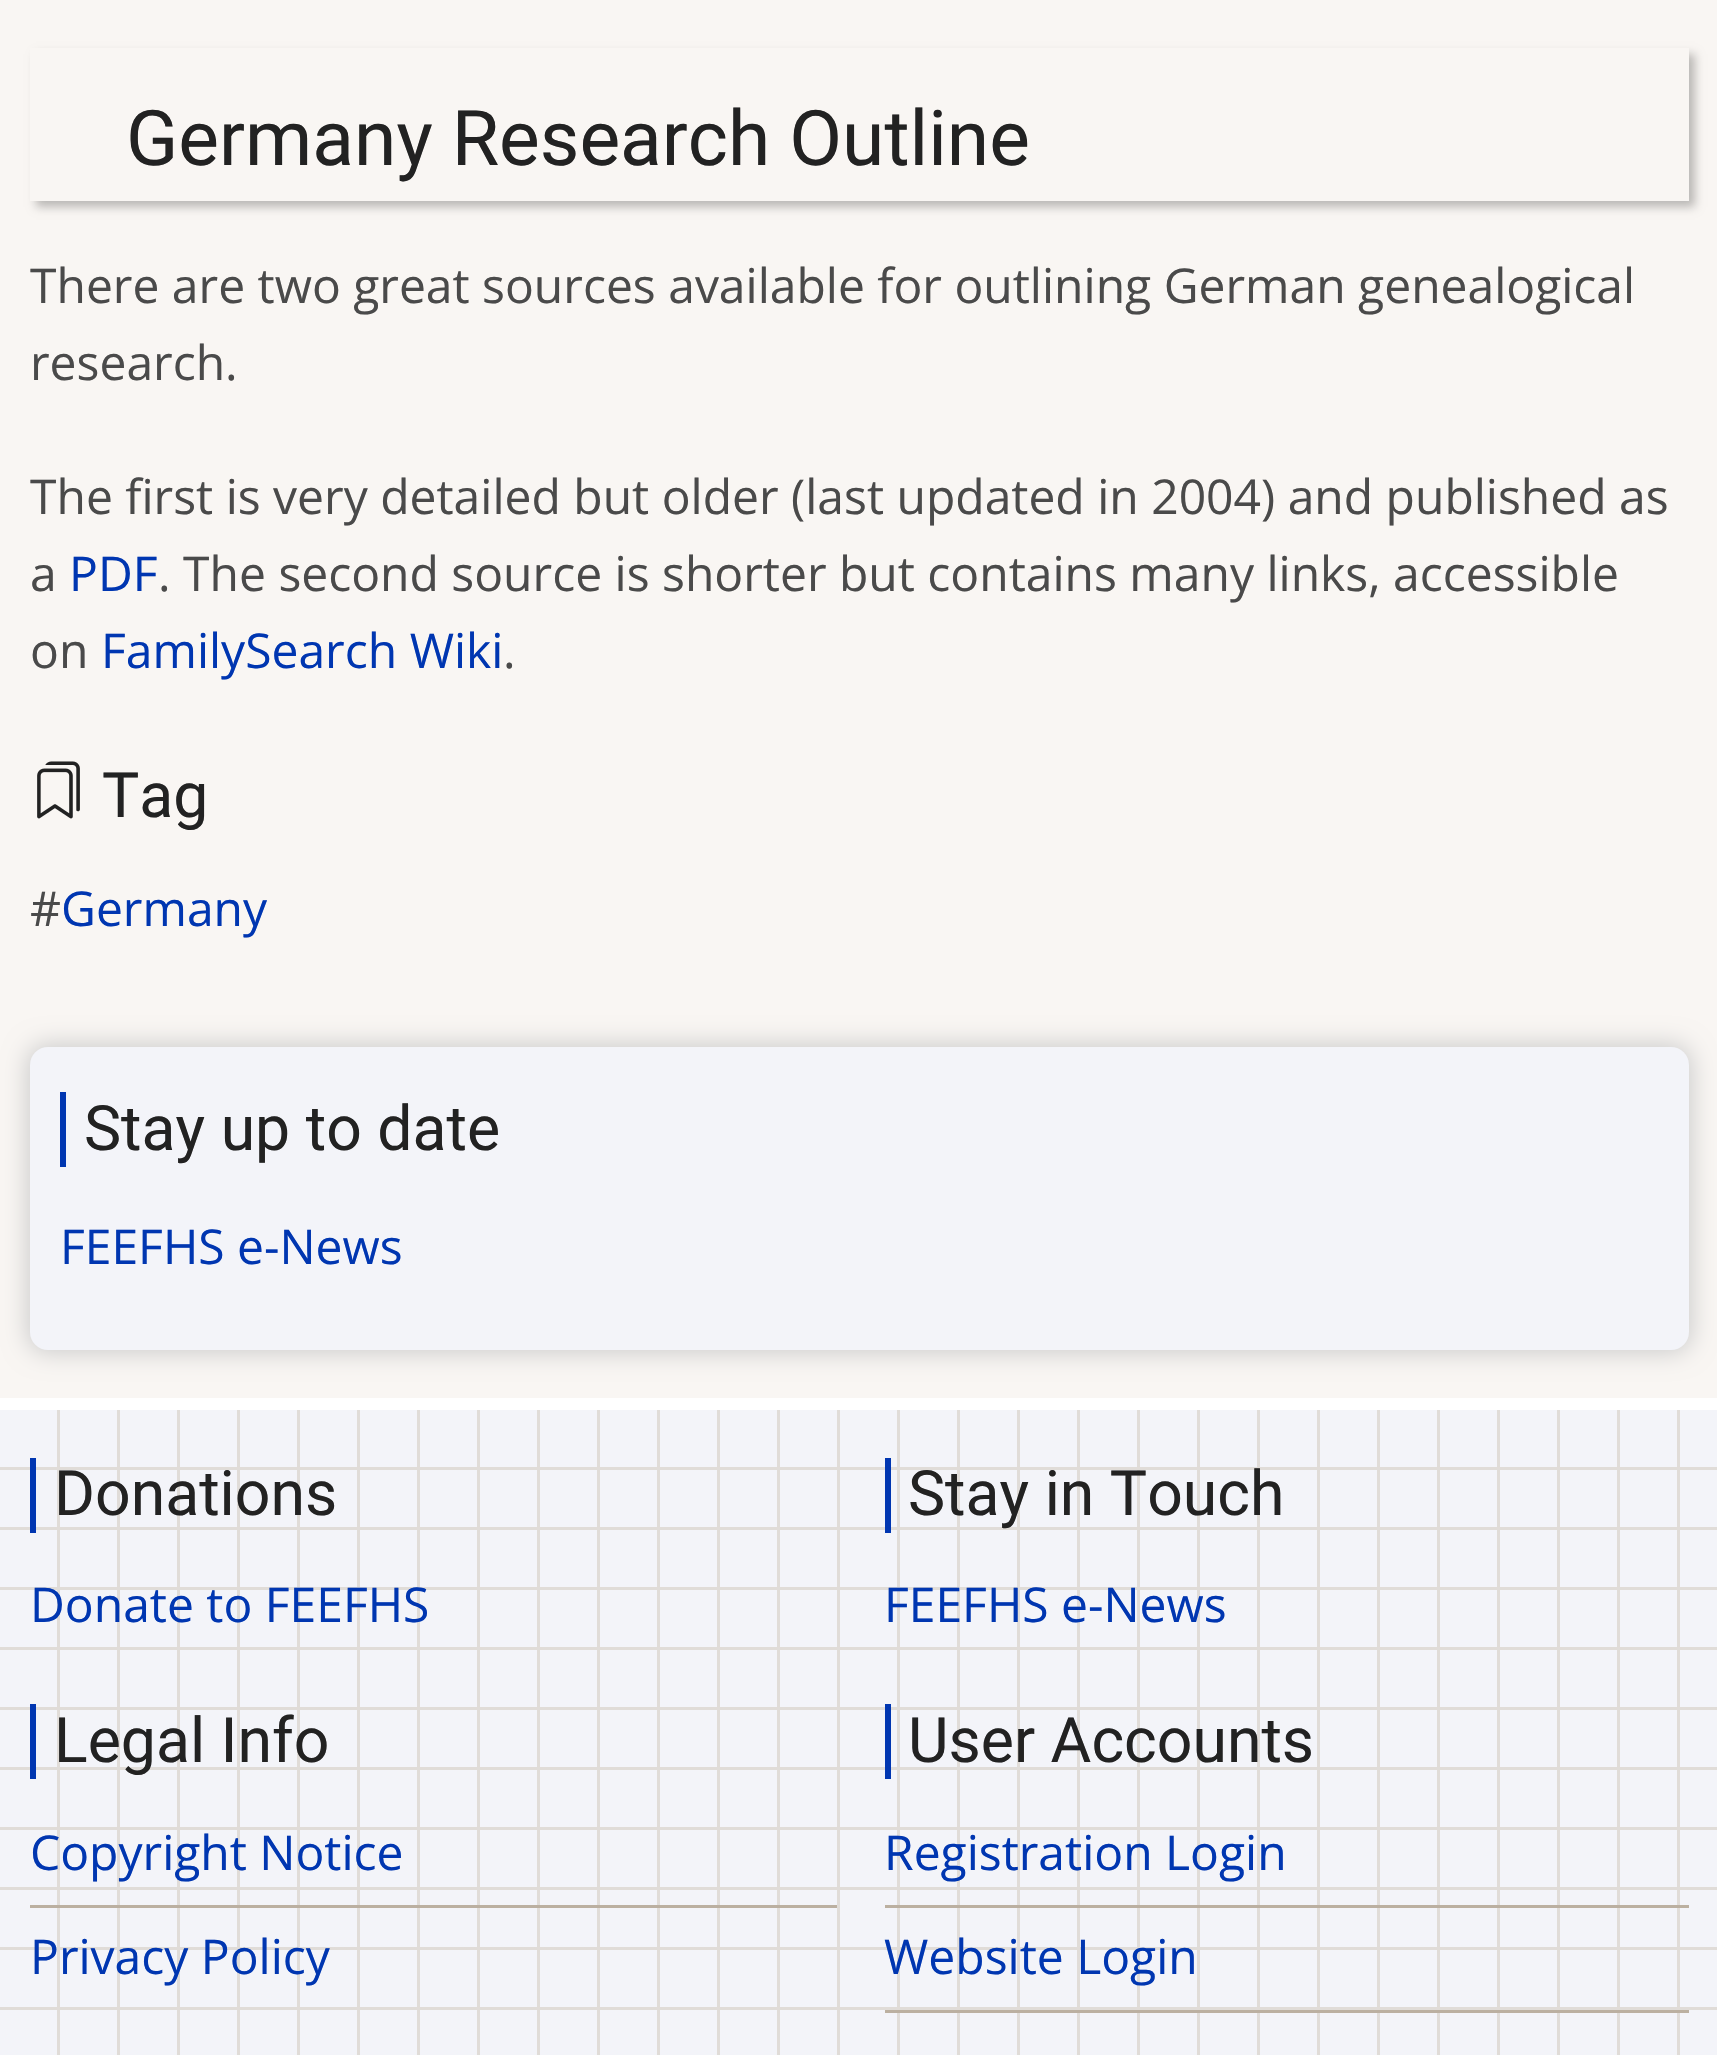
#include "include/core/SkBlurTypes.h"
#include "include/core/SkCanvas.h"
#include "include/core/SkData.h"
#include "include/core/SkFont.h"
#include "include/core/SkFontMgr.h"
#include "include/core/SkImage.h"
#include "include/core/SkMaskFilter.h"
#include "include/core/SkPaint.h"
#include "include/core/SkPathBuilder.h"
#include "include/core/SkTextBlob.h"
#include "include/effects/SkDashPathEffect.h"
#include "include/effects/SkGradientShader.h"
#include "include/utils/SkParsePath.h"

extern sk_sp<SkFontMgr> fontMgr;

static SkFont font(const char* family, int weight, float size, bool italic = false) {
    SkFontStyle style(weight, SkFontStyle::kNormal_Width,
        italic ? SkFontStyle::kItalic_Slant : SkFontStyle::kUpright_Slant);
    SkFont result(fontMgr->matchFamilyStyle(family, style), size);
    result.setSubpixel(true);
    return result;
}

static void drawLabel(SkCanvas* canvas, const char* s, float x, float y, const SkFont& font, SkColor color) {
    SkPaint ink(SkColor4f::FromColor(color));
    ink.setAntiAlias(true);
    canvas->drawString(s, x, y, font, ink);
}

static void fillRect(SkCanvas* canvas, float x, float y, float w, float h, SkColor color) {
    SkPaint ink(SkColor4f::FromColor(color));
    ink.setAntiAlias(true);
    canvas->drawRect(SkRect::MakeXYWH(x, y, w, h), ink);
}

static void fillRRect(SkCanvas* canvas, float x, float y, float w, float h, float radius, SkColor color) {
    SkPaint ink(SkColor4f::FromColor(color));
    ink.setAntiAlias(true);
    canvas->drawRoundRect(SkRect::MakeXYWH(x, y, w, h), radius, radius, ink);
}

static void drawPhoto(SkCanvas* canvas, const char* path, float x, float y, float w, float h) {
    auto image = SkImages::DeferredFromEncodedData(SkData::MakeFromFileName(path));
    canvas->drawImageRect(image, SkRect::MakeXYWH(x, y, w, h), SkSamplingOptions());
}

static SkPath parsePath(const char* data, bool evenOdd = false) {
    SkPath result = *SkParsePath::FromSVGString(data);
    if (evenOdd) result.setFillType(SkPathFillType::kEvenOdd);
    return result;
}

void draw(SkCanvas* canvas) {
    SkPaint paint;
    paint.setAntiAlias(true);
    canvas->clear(0xFFF9F6F3);
    canvas->save();
    canvas->clipPath(parsePath("M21 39H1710V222H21ZM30 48H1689V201H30Z", true), true);
    paint.setColor(0x40000000);
    paint.setMaskFilter(SkMaskFilter::MakeBlur(kNormal_SkBlurStyle, 4.5f));
    canvas->drawRect(SkRect::MakeXYWH(36, 54, 1659, 153), paint);
    paint.setMaskFilter(nullptr);
    canvas->restore();
    SkFont font1 = font("Roboto", 400, 76.75f);
    drawLabel(canvas, "Germany Research Outline", 126, 165, font1, 0xFF222222);
    SkFont font2 = font("Open Sans", 400, 48);
    drawLabel(canvas, "There are two great sources available for outlining German genealogical", 30, 303, font2, 0xFF4A4A4A);
    drawLabel(canvas, "research.", 30, 380, font2, 0xFF4A4A4A);
    drawLabel(canvas, "The first is very detailed but older (last updated in 2004) and published as", 30, 514, font2, 0xFF4A4A4A);
    drawLabel(canvas, "a", 30, 591, font2, 0xFF4A4A4A);
    drawLabel(canvas, "PDF", 69, 591, font2, 0xFF0036B1);
    drawLabel(canvas, ". The second source is shorter but contains many links, accessible", 158, 591, font2, 0xFF4A4A4A);
    drawLabel(canvas, "on", 30, 668, font2, 0xFF4A4A4A);
    drawLabel(canvas, "FamilySearch Wiki", 101, 668, font2, 0xFF0036B1);
    drawLabel(canvas, ".", 503, 668, font2, 0xFF4A4A4A);
    drawPhoto(canvas, "assets/img1.png", 37, 761, 43, 58);
    SkFont font3 = font("Roboto", 400, 62.5f);
    drawLabel(canvas, "Tag", 102, 817, font3, 0xFF222222);
    drawLabel(canvas, "#", 30, 926, font2, 0xFF4A4A4A);
    drawLabel(canvas, "Germany", 61, 926, font2, 0xFF0036B1);
    paint.setColor(0xFFCCCCCC);
    paint.setMaskFilter(SkMaskFilter::MakeBlur(kNormal_SkBlurStyle, 12));
    canvas->drawRoundRect(SkRect::MakeXYWH(27, 1044, 1665, 309), 21, 21, paint);
    paint.setMaskFilter(nullptr);
    fillRRect(canvas, 30, 1047, 1659, 303, 18, 0xFFF3F4F9);
    fillRect(canvas, 60, 1092, 6, 75, 0xFF0036B1);
    drawLabel(canvas, "Stay up to date", 84, 1150, font3, 0xFF222222);
    drawLabel(canvas, "FEEFHS e-News", 60, 1264, font2, 0xFF0036B1);
    fillRect(canvas, 0, 1410, 1717, 645, 0xFFF3F4F9);
    drawPhoto(canvas, "assets/img2.png", 0, 1410, 1717, 645);
    fillRect(canvas, 0, 1398, 1717, 12, 0xFFFFFFFF);
    fillRect(canvas, 30, 1458, 6, 75, 0xFF0036B1);
    drawLabel(canvas, "Donations", 54, 1515, font3, 0xFF222222);
    drawLabel(canvas, "Donate to FEEFHS", 30, 1622, font2, 0xFF0036B1);
    fillRect(canvas, 885, 1458, 6, 75, 0xFF0036B1);
    drawLabel(canvas, "Stay in Touch", 908, 1515, font3, 0xFF222222);
    drawLabel(canvas, "FEEFHS e-News", 884, 1622, font2, 0xFF0036B1);
    fillRect(canvas, 30, 1704, 6, 75, 0xFF0036B1);
    drawLabel(canvas, "Legal Info", 54, 1762, font3, 0xFF222222);
    fillRect(canvas, 30, 1905, 807, 3, 0xFFBBB0A1);
    drawLabel(canvas, "Copyright Notice", 30, 1870, font2, 0xFF0036B1);
    drawLabel(canvas, "Privacy Policy", 30, 1974, font2, 0xFF0036B1);
    fillRect(canvas, 885, 1704, 6, 75, 0xFF0036B1);
    drawLabel(canvas, "User Accounts", 908, 1762, font3, 0xFF222222);
    fillRect(canvas, 885, 1905, 804, 3, 0xFFBBB0A1);
    drawLabel(canvas, "Registration Login", 884, 1870, font2, 0xFF0036B1);
    fillRect(canvas, 885, 2010, 804, 3, 0xFFBBB0A1);
    drawLabel(canvas, "Website Login", 884, 1974, font2, 0xFF0036B1);
}
